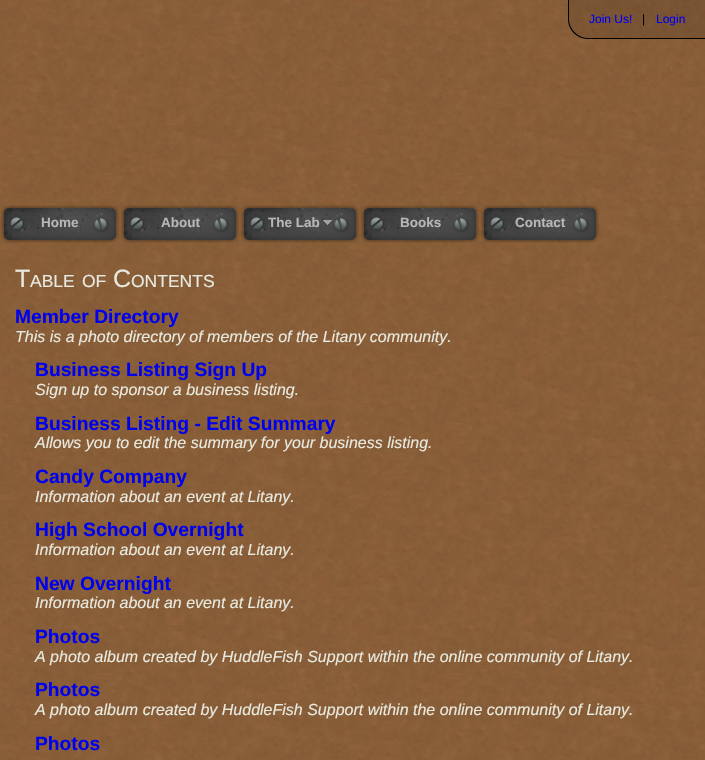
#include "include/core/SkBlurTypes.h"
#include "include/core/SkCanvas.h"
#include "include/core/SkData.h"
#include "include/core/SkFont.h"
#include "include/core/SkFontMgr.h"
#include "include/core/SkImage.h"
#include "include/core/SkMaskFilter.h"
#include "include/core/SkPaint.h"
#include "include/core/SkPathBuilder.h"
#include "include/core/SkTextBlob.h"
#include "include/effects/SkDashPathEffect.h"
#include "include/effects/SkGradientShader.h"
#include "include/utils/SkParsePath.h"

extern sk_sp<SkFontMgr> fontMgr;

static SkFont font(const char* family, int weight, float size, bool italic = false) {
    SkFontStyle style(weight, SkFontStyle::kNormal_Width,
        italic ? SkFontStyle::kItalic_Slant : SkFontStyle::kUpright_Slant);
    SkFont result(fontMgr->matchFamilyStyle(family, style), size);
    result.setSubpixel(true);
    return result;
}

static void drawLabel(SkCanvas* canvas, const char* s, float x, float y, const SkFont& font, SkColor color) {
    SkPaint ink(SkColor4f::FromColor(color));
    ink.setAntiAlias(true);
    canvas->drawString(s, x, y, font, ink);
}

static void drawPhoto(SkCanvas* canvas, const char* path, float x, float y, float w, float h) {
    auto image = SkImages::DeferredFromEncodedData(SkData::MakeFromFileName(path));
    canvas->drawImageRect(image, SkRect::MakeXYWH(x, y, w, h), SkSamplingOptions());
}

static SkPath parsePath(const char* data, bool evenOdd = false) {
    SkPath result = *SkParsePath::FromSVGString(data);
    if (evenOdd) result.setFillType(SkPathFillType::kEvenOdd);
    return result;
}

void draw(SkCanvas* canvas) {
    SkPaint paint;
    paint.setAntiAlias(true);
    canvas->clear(0xFFFFFFFF);
    drawPhoto(canvas, "assets/img1.png", 0, 0, 705, 760);
    drawPhoto(canvas, "assets/img2.png", 568, 0, 137, 39);
    paint.setColor(0xFF000000);
    canvas->drawPath(parsePath("M568 0H705V39H588C577 39 568 30 568 19ZM569 0H705V38H588C578 38 569 29 569 19Z", true), paint);
    SkFont font1 = font("Liberation Sans", 400, 12);
    drawLabel(canvas, "Join Us!", 589, 23, font1, 0xFF0000EE);
    drawLabel(canvas, "|", 642, 23, font1, 0xFF000000);
    drawLabel(canvas, "Login", 656, 23, font1, 0xFF0000EE);
    drawPhoto(canvas, "assets/img3.png", 1, 205, 118, 38);
    SkFont font2 = font("Liberation Sans", 700, 13.5f);
    drawLabel(canvas, "Home", 41, 227, font2, 0xFFB7B7B7);
    drawPhoto(canvas, "assets/img4.png", 121, 205, 118, 38);
    drawLabel(canvas, "About", 161, 227, font2, 0xFFB7B7B7);
    drawPhoto(canvas, "assets/img5.png", 241, 205, 118, 38);
    drawLabel(canvas, "The Lab", 268, 227, font2, 0xFFB7B7B7);
    drawPhoto(canvas, "assets/img6.png", 323, 220, 9, 5);
    drawPhoto(canvas, "assets/img7.png", 361, 205, 118, 38);
    drawLabel(canvas, "Books", 400, 227, font2, 0xFFB7B7B7);
    drawPhoto(canvas, "assets/img8.png", 481, 205, 118, 38);
    drawLabel(canvas, "Contact", 515, 227, font2, 0xFFB7B7B7);
    SkFont font3 = font("Liberation Sans", 400, 25);
    drawLabel(canvas, "T", 15, 287, font3, 0xFFE8E9DF);
    SkFont font4 = font("Liberation Sans", 400, 17.5f);
    drawLabel(canvas, "ABLE", 30, 287, font4, 0xFFE8E9DF);
    drawLabel(canvas, "OF", 82, 287, font4, 0xFFE8E9DF);
    drawLabel(canvas, "C", 113, 287, font3, 0xFFE8E9DF);
    drawLabel(canvas, "ONTENTS", 131, 287, font4, 0xFFE8E9DF);
    SkFont font5 = font("Liberation Sans", 700, 19.25f);
    drawLabel(canvas, "Member Directory", 15, 323, font5, 0xFF0000EE);
    SkFont font6 = font("Liberation Sans", 400, 16, true);
    drawLabel(canvas, "This is a photo directory of members of the Litany community.", 15, 342, font6, 0xFFE8E9DF);
    drawLabel(canvas, "Business Listing Sign Up", 35, 376, font5, 0xFF0000EE);
    drawLabel(canvas, "Sign up to sponsor a business listing.", 35, 395, font6, 0xFFE8E9DF);
    drawLabel(canvas, "Business Listing - Edit Summary", 35, 430, font5, 0xFF0000EE);
    drawLabel(canvas, "Allows you to edit the summary for your business listing.", 35, 448, font6, 0xFFE8E9DF);
    drawLabel(canvas, "Candy Company", 35, 483, font5, 0xFF0000EE);
    drawLabel(canvas, "Information about an event at Litany.", 35, 502, font6, 0xFFE8E9DF);
    drawLabel(canvas, "High School Overnight", 35, 536, font5, 0xFF0000EE);
    drawLabel(canvas, "Information about an event at Litany.", 35, 555, font6, 0xFFE8E9DF);
    drawLabel(canvas, "New Overnight", 35, 590, font5, 0xFF0000EE);
    drawLabel(canvas, "Information about an event at Litany.", 35, 608, font6, 0xFFE8E9DF);
    drawLabel(canvas, "Photos", 35, 643, font5, 0xFF0000EE);
    drawLabel(canvas, "A photo album created by HuddleFish Support within the online community of Litany.", 35, 662, font6, 0xFFE8E9DF);
    drawLabel(canvas, "Photos", 35, 696, font5, 0xFF0000EE);
    drawLabel(canvas, "A photo album created by HuddleFish Support within the online community of Litany.", 35, 715, font6, 0xFFE8E9DF);
    drawLabel(canvas, "Photos", 35, 750, font5, 0xFF0000EE);
}
